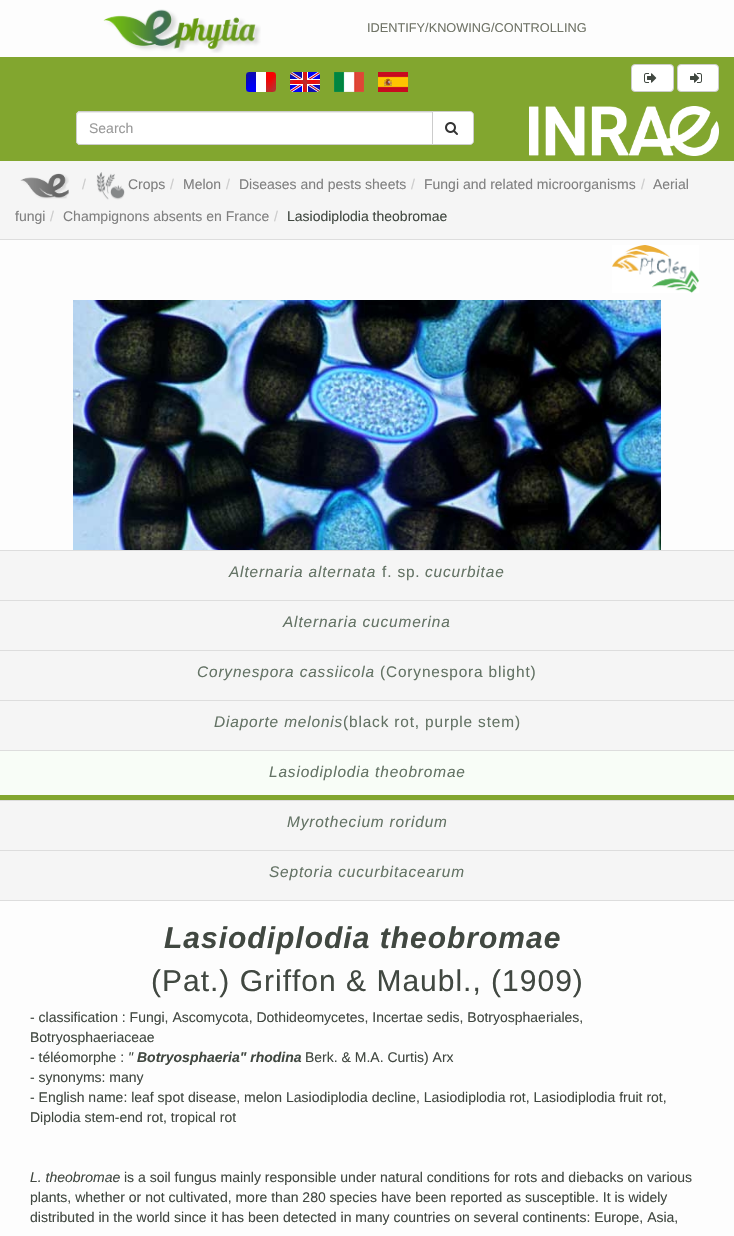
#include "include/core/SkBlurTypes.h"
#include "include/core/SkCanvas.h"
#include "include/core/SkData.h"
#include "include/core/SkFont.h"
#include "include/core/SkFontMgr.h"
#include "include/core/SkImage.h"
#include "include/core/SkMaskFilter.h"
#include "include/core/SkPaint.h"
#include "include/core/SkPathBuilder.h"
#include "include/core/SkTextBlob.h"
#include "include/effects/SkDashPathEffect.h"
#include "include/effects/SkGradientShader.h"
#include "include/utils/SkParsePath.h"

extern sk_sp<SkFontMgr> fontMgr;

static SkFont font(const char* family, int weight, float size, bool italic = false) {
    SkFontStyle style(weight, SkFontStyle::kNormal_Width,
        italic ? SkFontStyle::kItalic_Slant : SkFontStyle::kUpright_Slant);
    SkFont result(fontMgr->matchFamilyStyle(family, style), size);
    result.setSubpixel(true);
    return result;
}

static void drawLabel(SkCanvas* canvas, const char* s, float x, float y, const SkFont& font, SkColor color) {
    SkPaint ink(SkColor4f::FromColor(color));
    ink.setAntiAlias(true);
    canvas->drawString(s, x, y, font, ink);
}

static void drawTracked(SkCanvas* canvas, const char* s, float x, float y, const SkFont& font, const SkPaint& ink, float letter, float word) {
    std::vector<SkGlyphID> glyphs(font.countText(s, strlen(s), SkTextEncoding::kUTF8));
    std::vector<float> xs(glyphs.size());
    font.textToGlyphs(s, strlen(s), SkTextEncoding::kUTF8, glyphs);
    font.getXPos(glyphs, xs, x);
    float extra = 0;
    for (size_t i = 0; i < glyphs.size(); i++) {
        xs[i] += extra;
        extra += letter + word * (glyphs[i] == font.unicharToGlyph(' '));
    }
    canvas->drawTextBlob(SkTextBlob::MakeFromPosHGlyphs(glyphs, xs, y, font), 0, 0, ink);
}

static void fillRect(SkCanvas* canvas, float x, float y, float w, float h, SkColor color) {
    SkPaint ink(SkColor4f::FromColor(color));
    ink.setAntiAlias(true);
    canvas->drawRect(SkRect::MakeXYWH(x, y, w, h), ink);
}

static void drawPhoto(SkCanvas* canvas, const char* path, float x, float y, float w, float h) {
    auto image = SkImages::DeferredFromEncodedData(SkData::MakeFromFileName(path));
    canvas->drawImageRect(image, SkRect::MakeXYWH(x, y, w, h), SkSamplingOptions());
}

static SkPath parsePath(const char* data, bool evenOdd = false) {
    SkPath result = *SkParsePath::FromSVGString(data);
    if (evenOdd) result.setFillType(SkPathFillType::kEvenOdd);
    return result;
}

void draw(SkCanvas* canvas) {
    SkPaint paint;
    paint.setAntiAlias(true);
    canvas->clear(0xFFFDFDFD);
    fillRect(canvas, 0, 57, 734, 104, 0xFF82A62F);
    drawPhoto(canvas, "assets/img1.png", 103, 9, 158, 44);
    SkFont font1 = font("Liberation Sans", 400, 12.75f);
    drawLabel(canvas, "IDENTIFY/KNOWING/CONTROLLING", 367, 32, font1, 0xFF707467);
    drawPhoto(canvas, "assets/img2.png", 246, 72, 30, 20);
    drawPhoto(canvas, "assets/img3.png", 290, 72, 30, 20);
    drawPhoto(canvas, "assets/img4.png", 334, 72, 30, 20);
    drawPhoto(canvas, "assets/img5.png", 378, 72, 30, 20);
    paint.setColor(0xFFFFFFFF);
    canvas->drawRoundRect(SkRect::MakeXYWH(631.5f, 64.5f, 42, 27), 3.5f, 3.5f, paint);
    paint.setStroke(true);
    paint.setStrokeWidth(1);
    paint.setColor(0xFFCCCCCC);
    canvas->drawRoundRect(SkRect::MakeXYWH(631.5f, 64.5f, 42, 27), 3.5f, 3.5f, paint);
    drawPhoto(canvas, "assets/img6.png", 644, 73, 13, 10);
    paint.setStroke(false);
    paint.setColor(0xFFFFFFFF);
    canvas->drawRoundRect(SkRect::MakeXYWH(677.5f, 64.5f, 41, 27), 3.5f, 3.5f, paint);
    paint.setStroke(true);
    paint.setColor(0xFFCCCCCC);
    canvas->drawRoundRect(SkRect::MakeXYWH(677.5f, 64.5f, 41, 27), 3.5f, 3.5f, paint);
    drawPhoto(canvas, "assets/img7.png", 690, 73, 12, 10);
    paint.setStroke(false);
    paint.setColor(0xFFFFFFFF);
    canvas->drawPath(parsePath("M80 111H433V145H80C78 145 76 143 76 141V115C76 113 78 111 80 111Z"), paint);
    paint.setColor(0xFFECECEC);
    canvas->drawPath(parsePath("M80 113H432V112H80C78 112 77 113 77 115V116C77 114 78 113 80 113Z"), paint);
    paint.setStroke(true);
    paint.setColor(0xFFCCCCCC);
    canvas->drawPath(parsePath("M80 111.5H432.5V144.5H80C78 144.5 76.5 143 76.5 141V115C76.5 113 78 111.5 80 111.5Z"), paint);
    SkFont font2 = font("Liberation Sans", 400, 14);
    drawLabel(canvas, "Search", 89, 133, font2, 0xFF999999);
    paint.setStroke(false);
    paint.setColor(0xFFFFFFFF);
    canvas->drawPath(parsePath("M432.5 111.5H470C472 111.5 473.5 113 473.5 115V141C473.5 143 472 144.5 470 144.5H432.5Z"), paint);
    paint.setStroke(true);
    paint.setColor(0xFFCCCCCC);
    canvas->drawPath(parsePath("M432.5 111.5H470C472 111.5 473.5 113 473.5 115V141C473.5 143 472 144.5 470 144.5H432.5Z"), paint);
    drawPhoto(canvas, "assets/img8.png", 445, 122, 13, 13);
    drawPhoto(canvas, "assets/img9.png", 529, 106, 190, 50);
    fillRect(canvas, 0, 239, 734, 1, 0xFFDDDDDD);
    fillRect(canvas, 0, 161, 734, 78, 0xFFF5F5F5);
    drawPhoto(canvas, "assets/img10.png", 20, 173, 49, 26);
    drawLabel(canvas, "/", 82, 189, font2, 0xFFCCCCCC);
    drawPhoto(canvas, "assets/img11.png", 96, 172, 29, 28);
    drawLabel(canvas, "Crops", 128, 189, font2, 0xFF808080);
    drawLabel(canvas, "/", 170, 189, font2, 0xFFCCCCCC);
    drawLabel(canvas, "Melon", 183, 189, font2, 0xFF808080);
    drawLabel(canvas, "/", 226, 189, font2, 0xFFCCCCCC);
    drawLabel(canvas, "Diseases and pests sheets", 239, 189, font2, 0xFF808080);
    drawLabel(canvas, "/", 411, 189, font2, 0xFFCCCCCC);
    drawLabel(canvas, "Fungi and related microorganisms", 424, 189, font2, 0xFF808080);
    drawLabel(canvas, "/", 641, 189, font2, 0xFFCCCCCC);
    drawLabel(canvas, "Aerial", 653, 189, font2, 0xFF808080);
    drawLabel(canvas, "fungi", 15, 221, font2, 0xFF808080);
    drawLabel(canvas, "/", 50, 221, font2, 0xFFCCCCCC);
    drawLabel(canvas, "Champignons absents en France", 63, 221, font2, 0xFF808080);
    drawLabel(canvas, "/", 274, 221, font2, 0xFFCCCCCC);
    drawLabel(canvas, "Lasiodiplodia theobromae", 287, 221, font2, 0xFF414841);
    drawPhoto(canvas, "assets/img12.png", 612, 245, 87, 48);
    drawPhoto(canvas, "assets/img13.png", 73, 300, 588, 250);
    fillRect(canvas, 0, 900, 734, 1, 0xFFDDDDDD);
    fillRect(canvas, 0, 551, 734, 49, 0xFFF5F5F5);
    fillRect(canvas, 0, 550, 734, 1, 0xFFDDDDDD);
    SkFont font3 = font("Liberation Sans", 400, 15.4f, true);
    paint.setStroke(false);
    paint.setColor(0xFF647365);
    drawTracked(canvas, "Alternaria alternata", 229, 577, font3, paint, 0.85f, 0);
    SkFont font4 = font("Liberation Sans", 400, 15.4f);
    drawTracked(canvas, "f. sp.", 382, 577, font4, paint, 0.85f, 0);
    drawTracked(canvas, "cucurbitae", 425, 577, font3, paint, 0.85f, 0);
    fillRect(canvas, 0, 601, 734, 49, 0xFFF5F5F5);
    fillRect(canvas, 0, 600, 734, 1, 0xFFDDDDDD);
    drawTracked(canvas, "Alternaria cucumerina", 283, 627, font3, paint, 0.85f, 0);
    fillRect(canvas, 0, 651, 734, 49, 0xFFF5F5F5);
    fillRect(canvas, 0, 650, 734, 1, 0xFFDDDDDD);
    drawTracked(canvas, "Corynespora cassiicola", 197, 677, font3, paint, 0.85f, 0);
    drawTracked(canvas, "(Corynespora blight)", 380, 677, font4, paint, 0.85f, 0);
    fillRect(canvas, 0, 701, 734, 49, 0xFFF5F5F5);
    fillRect(canvas, 0, 700, 734, 1, 0xFFDDDDDD);
    drawTracked(canvas, "Diaporte melonis", 214, 727, font3, paint, 0.85f, 0);
    drawTracked(canvas, "(black rot, purple stem)", 343, 727, font4, paint, 0.85f, 0);
    fillRect(canvas, 0, 750, 734, 1, 0xFFDDDDDD);
    paint.setColor(0xFF82A62F);
    canvas->drawPath(parsePath("M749 800H-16L-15 795H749Z"), paint);
    fillRect(canvas, 0, 751, 734, 44, 0xFFF8FDF7);
    paint.setColor(0xFF647365);
    drawTracked(canvas, "Lasiodiplodia theobromae", 269, 777, font3, paint, 0.85f, 0);
    fillRect(canvas, 0, 801, 734, 49, 0xFFF5F5F5);
    fillRect(canvas, 0, 800, 734, 1, 0xFFDDDDDD);
    drawTracked(canvas, "Myrothecium roridum", 287, 827, font3, paint, 0.85f, 0);
    fillRect(canvas, 0, 851, 734, 49, 0xFFF5F5F5);
    fillRect(canvas, 0, 850, 734, 1, 0xFFDDDDDD);
    drawTracked(canvas, "Septoria cucurbitacearum", 269, 877, font3, paint, 0.85f, 0);
    SkFont font5 = font("Liberation Sans", 700, 30, true);
    paint.setColor(0xFF414841);
    drawTracked(canvas, "Lasiodiplodia theobromae", 164, 948, font5, paint, 1, 0);
    SkFont font6 = font("Liberation Sans", 400, 30);
    drawTracked(canvas, "(Pat.) Griffon & Maubl., (1909)", 151, 991, font6, paint, 1, 0);
    drawLabel(canvas, "- classification : Fungi, Ascomycota, Dothideomycetes, Incertae sedis, Botryosphaeriales,", 30, 1022, font2, 0xFF414841);
    drawLabel(canvas, "Botryosphaeriaceae", 30, 1042, font2, 0xFF414841);
    drawLabel(canvas, "- téléomorphe :", 30, 1062, font2, 0xFF414841);
    SkFont font7 = font("Liberation Sans", 400, 14, true);
    drawLabel(canvas, "\"", 128, 1062, font7, 0xFF414841);
    SkFont font8 = font("Liberation Sans", 700, 14, true);
    drawLabel(canvas, "Botryosphaeria\" rhodina", 137, 1062, font8, 0xFF414841);
    drawLabel(canvas, "Berk. & M.A. Curtis) Arx", 305, 1062, font2, 0xFF414841);
    drawLabel(canvas, "- synonyms: many", 30, 1082, font2, 0xFF414841);
    drawLabel(canvas, "- English name: leaf spot disease, melon Lasiodiplodia decline, Lasiodiplodia rot, Lasiodiplodia fruit rot,", 30, 1102, font2, 0xFF414841);
    drawLabel(canvas, "Diplodia stem-end rot, tropical rot", 30, 1122, font2, 0xFF414841);
    drawLabel(canvas, "L. theobromae", 30, 1182, font7, 0xFF414841);
    drawLabel(canvas, "is a soil fungus mainly responsible under natural conditions for rots and diebacks on various", 124, 1182, font2, 0xFF414841);
    drawLabel(canvas, "plants, whether or not cultivated, more than 280 species have been reported as susceptible. It is widely", 30, 1202, font2, 0xFF414841);
    drawLabel(canvas, "distributed in the world since it has been detected in many countries on several continents: Europe, Asia,", 30, 1222, font2, 0xFF414841);
}
